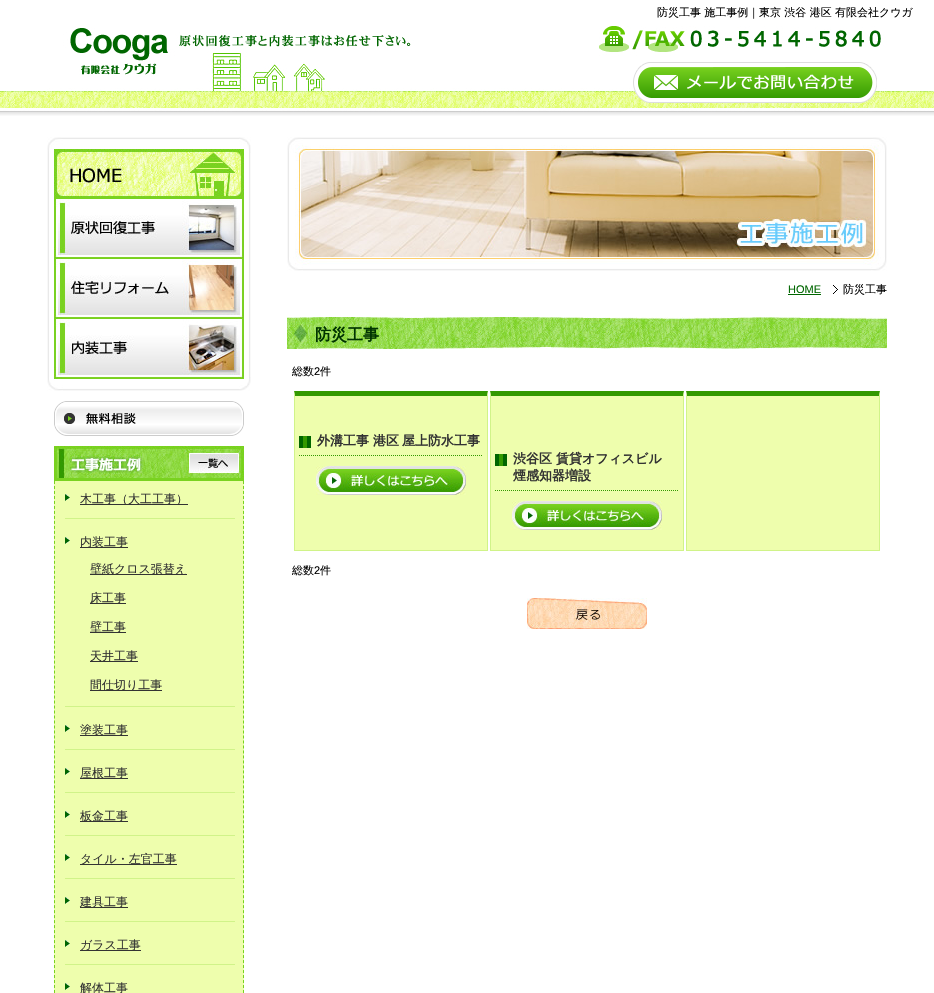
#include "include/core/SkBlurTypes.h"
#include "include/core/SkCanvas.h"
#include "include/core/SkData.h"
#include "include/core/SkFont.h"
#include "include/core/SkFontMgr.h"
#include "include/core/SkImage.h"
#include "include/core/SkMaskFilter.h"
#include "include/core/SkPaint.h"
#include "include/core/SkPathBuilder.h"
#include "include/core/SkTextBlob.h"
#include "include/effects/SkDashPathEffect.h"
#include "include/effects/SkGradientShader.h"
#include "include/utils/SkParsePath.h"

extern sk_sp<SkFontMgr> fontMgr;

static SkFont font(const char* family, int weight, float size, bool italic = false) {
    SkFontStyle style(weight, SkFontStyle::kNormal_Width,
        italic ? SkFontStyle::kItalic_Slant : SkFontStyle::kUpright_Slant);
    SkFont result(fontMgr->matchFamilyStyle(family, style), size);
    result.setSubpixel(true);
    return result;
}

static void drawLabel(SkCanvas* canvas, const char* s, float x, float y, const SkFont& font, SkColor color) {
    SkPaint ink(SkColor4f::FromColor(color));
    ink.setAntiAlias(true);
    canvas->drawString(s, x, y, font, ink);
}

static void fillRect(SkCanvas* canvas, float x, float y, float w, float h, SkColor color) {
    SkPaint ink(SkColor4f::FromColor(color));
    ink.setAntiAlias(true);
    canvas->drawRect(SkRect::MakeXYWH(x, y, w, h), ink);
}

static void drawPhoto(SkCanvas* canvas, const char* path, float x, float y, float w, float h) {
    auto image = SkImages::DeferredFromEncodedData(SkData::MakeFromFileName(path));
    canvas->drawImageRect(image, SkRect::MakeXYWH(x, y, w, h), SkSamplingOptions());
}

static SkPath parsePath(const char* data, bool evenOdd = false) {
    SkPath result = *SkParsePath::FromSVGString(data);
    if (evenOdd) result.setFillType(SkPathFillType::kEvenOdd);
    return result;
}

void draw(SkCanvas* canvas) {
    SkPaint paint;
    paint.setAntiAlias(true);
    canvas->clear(0xFFFFFFFF);
    drawPhoto(canvas, "assets/img1.png", 0, 91, 934, 25);
    drawPhoto(canvas, "assets/img2.png", 47, 26, 840, 86);
    SkFont font1 = font("WenQuanYi Zen Hei", 500, 11);
    drawLabel(canvas, "防災工事 施工事例｜東京 渋谷 港区 有限会社クウガ", 657, 16, font1, 0xFF000000);
    drawPhoto(canvas, "assets/img3.png", 633, 62, 244, 41);
    drawPhoto(canvas, "assets/img4.png", 287, 137, 600, 134);
    SkFont font2 = font("Liberation Sans", 400, 11);
    drawLabel(canvas, "HOME", 788, 293, font2, 0xFF006600);
    fillRect(canvas, 788, 294, 33, 1, 0xFF006600);
    drawPhoto(canvas, "assets/img5.png", 833, 285, 5, 9);
    drawLabel(canvas, "防災工事", 843, 293, font1, 0xFF000000);
    drawPhoto(canvas, "assets/img6.png", 287, 317, 600, 32);
    SkFont font3 = font("WenQuanYi Zen Hei", 700, 16);
    drawLabel(canvas, "防災工事", 315, 340, font3, 0xFF003300);
    drawLabel(canvas, "総数", 292, 375, font1, 0xFF000000);
    drawLabel(canvas, "2", 314, 375, font2, 0xFF000000);
    drawLabel(canvas, "件", 320, 375, font1, 0xFF000000);
    fillRect(canvas, 295, 396, 192, 154, 0xFFEEFEAD);
    paint.setColor(0xFF339900);
    canvas->drawPath(parsePath("M294 391H488L487 396H295Z"), paint);
    paint.setColor(0xFFD0F389);
    canvas->drawPath(parsePath("M488 391V551L487 550V396Z"), paint);
    fillRect(canvas, 294, 550, 194, 1, 0xFFD0F389);
    canvas->drawPath(parsePath("M294 551V391L295 396V550Z"), paint);
    drawPhoto(canvas, "assets/img7.png", 299, 436, 12, 12);
    paint.setStroke(true);
    paint.setStrokeWidth(1);
    paint.setColor(0xFF339900);
    paint.setPathEffect(SkDashPathEffect::Make({{1, 1}}, 0));
    canvas->drawPath(parsePath("M299 455.5H483"), paint);
    paint.setPathEffect(nullptr);
    SkFont font4 = font("WenQuanYi Zen Hei", 700, 13);
    drawLabel(canvas, "外溝工事 港区", 317, 445, font4, 0xFF333333);
    drawLabel(canvas, "屋上防水工事", 402, 445, font4, 0xFF333333);
    drawPhoto(canvas, "assets/img8.png", 316, 466, 150, 29);
    fillRect(canvas, 687, 396, 192, 154, 0xFFEEFEAD);
    paint.setStroke(false);
    canvas->drawPath(parsePath("M686 391H880L879 396H687Z"), paint);
    paint.setColor(0xFFD0F389);
    canvas->drawPath(parsePath("M880 391V551L879 550V396Z"), paint);
    fillRect(canvas, 686, 550, 194, 1, 0xFFD0F389);
    canvas->drawPath(parsePath("M686 551V391L687 396V550Z"), paint);
    fillRect(canvas, 491, 396, 192, 154, 0xFFEEFEAD);
    paint.setColor(0xFF339900);
    canvas->drawPath(parsePath("M490 391H684L683 396H491Z"), paint);
    paint.setColor(0xFFD0F389);
    canvas->drawPath(parsePath("M684 391V551L683 550V396Z"), paint);
    fillRect(canvas, 490, 550, 194, 1, 0xFFD0F389);
    canvas->drawPath(parsePath("M490 551V391L491 396V550Z"), paint);
    drawPhoto(canvas, "assets/img7.png", 495, 454, 12, 12);
    paint.setStroke(true);
    paint.setColor(0xFF339900);
    paint.setPathEffect(SkDashPathEffect::Make({{1, 1}}, 0));
    canvas->drawPath(parsePath("M495 490.5H679"), paint);
    paint.setPathEffect(nullptr);
    drawLabel(canvas, "渋谷区 賃貸オフィスビル", 513, 463, font4, 0xFF333333);
    drawLabel(canvas, "煙感知器増設", 513, 480, font4, 0xFF333333);
    drawPhoto(canvas, "assets/img8.png", 512, 501, 150, 29);
    drawLabel(canvas, "総数", 292, 574, font1, 0xFF000000);
    drawLabel(canvas, "2", 314, 574, font2, 0xFF000000);
    drawLabel(canvas, "件", 320, 574, font1, 0xFF000000);
    drawPhoto(canvas, "assets/img9.png", 527, 598, 120, 31);
    drawPhoto(canvas, "assets/img10.png", 47, 137, 204, 254);
    drawPhoto(canvas, "assets/img11.png", 54, 149, 190, 50);
    drawPhoto(canvas, "assets/img12.png", 54, 199, 190, 60);
    drawPhoto(canvas, "assets/img13.png", 54, 259, 190, 60);
    drawPhoto(canvas, "assets/img14.png", 54, 319, 190, 60);
    drawPhoto(canvas, "assets/img15.png", 54, 401, 190, 35);
    drawPhoto(canvas, "assets/img16.png", 54, 446, 190, 35);
    fillRect(canvas, 54, 481, 190, 512, 0xFFEEFEAD);
    paint.setColor(0xFF79D21F);
    paint.setPathEffect(SkDashPathEffect::Make({{3, 1.99f}}, 0));
    canvas->drawPath(parsePath("M243.5 481V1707"), paint);
    paint.setPathEffect(nullptr);
    paint.setPathEffect(SkDashPathEffect::Make({{3, 1.99f}}, 0));
    canvas->drawPath(parsePath("M54.5 481V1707"), paint);
    paint.setPathEffect(nullptr);
    drawPhoto(canvas, "assets/img17.png", 65, 494, 5, 7);
    fillRect(canvas, 65, 518, 170, 1, 0xFFD0F389);
    fillRect(canvas, 80, 504, 108, 1, 0xFF333333);
    SkFont font5 = font("WenQuanYi Zen Hei", 500, 12);
    drawLabel(canvas, "木工事（大工工事）", 80, 503, font5, 0xFF333333);
    drawPhoto(canvas, "assets/img17.png", 65, 537, 5, 7);
    fillRect(canvas, 65, 706, 170, 1, 0xFFD0F389);
    fillRect(canvas, 80, 547, 48, 1, 0xFF333333);
    drawLabel(canvas, "内装工事", 80, 546, font5, 0xFF333333);
    fillRect(canvas, 90, 574, 97, 1, 0xFF333333);
    drawLabel(canvas, "壁紙クロス張替え", 90, 573, font5, 0xFF333333);
    fillRect(canvas, 90, 603, 36, 1, 0xFF333333);
    drawLabel(canvas, "床工事", 90, 602, font5, 0xFF333333);
    fillRect(canvas, 90, 632, 36, 1, 0xFF333333);
    drawLabel(canvas, "壁工事", 90, 631, font5, 0xFF333333);
    fillRect(canvas, 90, 661, 48, 1, 0xFF333333);
    drawLabel(canvas, "天井工事", 90, 660, font5, 0xFF333333);
    fillRect(canvas, 90, 690, 72, 1, 0xFF333333);
    drawLabel(canvas, "間仕切り工事", 90, 689, font5, 0xFF333333);
    drawPhoto(canvas, "assets/img17.png", 65, 725, 5, 7);
    fillRect(canvas, 65, 749, 170, 1, 0xFFD0F389);
    fillRect(canvas, 80, 735, 48, 1, 0xFF333333);
    drawLabel(canvas, "塗装工事", 80, 734, font5, 0xFF333333);
    drawPhoto(canvas, "assets/img17.png", 65, 768, 5, 7);
    fillRect(canvas, 65, 792, 170, 1, 0xFFD0F389);
    fillRect(canvas, 80, 778, 48, 1, 0xFF333333);
    drawLabel(canvas, "屋根工事", 80, 777, font5, 0xFF333333);
    drawPhoto(canvas, "assets/img17.png", 65, 811, 5, 7);
    fillRect(canvas, 65, 835, 170, 1, 0xFFD0F389);
    fillRect(canvas, 80, 821, 48, 1, 0xFF333333);
    drawLabel(canvas, "板金工事", 80, 820, font5, 0xFF333333);
    drawPhoto(canvas, "assets/img17.png", 65, 854, 5, 7);
    fillRect(canvas, 65, 878, 170, 1, 0xFFD0F389);
    fillRect(canvas, 80, 864, 97, 1, 0xFF333333);
    drawLabel(canvas, "タイル・左官工事", 80, 863, font5, 0xFF333333);
    drawPhoto(canvas, "assets/img17.png", 65, 897, 5, 7);
    fillRect(canvas, 65, 921, 170, 1, 0xFFD0F389);
    fillRect(canvas, 80, 907, 48, 1, 0xFF333333);
    drawLabel(canvas, "建具工事", 80, 906, font5, 0xFF333333);
    drawPhoto(canvas, "assets/img17.png", 65, 940, 5, 7);
    fillRect(canvas, 65, 964, 170, 1, 0xFFD0F389);
    fillRect(canvas, 80, 950, 61, 1, 0xFF333333);
    drawLabel(canvas, "ガラス工事", 80, 949, font5, 0xFF333333);
    drawPhoto(canvas, "assets/img17.png", 65, 983, 5, 7);
    drawLabel(canvas, "解体工事", 80, 992, font5, 0xFF333333);
}
